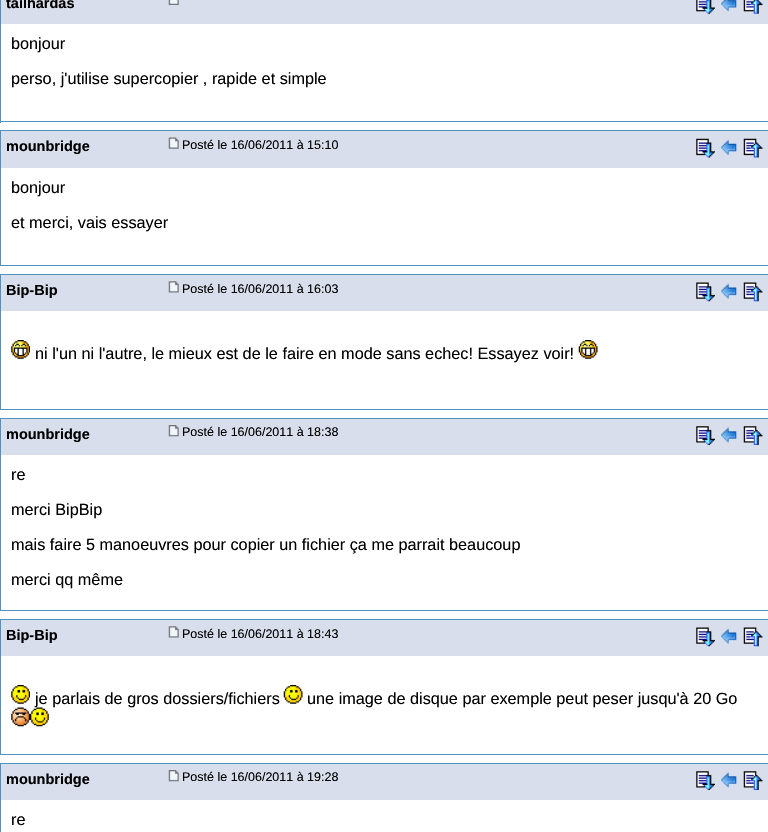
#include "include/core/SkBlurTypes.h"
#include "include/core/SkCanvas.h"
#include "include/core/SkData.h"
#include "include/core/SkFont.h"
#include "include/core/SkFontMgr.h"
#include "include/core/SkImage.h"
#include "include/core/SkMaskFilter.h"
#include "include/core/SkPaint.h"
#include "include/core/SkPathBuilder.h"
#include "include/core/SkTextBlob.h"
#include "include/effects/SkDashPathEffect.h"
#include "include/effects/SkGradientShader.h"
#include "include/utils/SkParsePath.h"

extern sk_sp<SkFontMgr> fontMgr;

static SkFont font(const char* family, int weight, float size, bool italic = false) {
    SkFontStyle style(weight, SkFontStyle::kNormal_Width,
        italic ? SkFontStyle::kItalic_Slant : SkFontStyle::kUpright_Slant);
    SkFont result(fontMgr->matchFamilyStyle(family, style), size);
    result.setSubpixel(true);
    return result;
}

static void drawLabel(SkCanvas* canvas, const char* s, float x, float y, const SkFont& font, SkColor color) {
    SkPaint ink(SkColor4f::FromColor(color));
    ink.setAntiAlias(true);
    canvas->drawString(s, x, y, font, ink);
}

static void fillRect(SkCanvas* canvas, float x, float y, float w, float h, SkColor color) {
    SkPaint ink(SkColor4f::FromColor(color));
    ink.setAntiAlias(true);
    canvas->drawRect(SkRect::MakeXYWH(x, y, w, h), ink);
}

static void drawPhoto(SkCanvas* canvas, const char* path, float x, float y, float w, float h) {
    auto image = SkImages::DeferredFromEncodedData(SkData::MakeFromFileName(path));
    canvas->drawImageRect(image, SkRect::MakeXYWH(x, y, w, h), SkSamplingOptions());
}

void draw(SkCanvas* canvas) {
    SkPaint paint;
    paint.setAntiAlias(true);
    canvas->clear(0xFFFFFFFF);
    fillRect(canvas, 1, 0, 767, 24, 0xFFD8DEEB);
    fillRect(canvas, 0, 0, 1, 123, 0xFF4E93BD);
    SkFont font1 = font("Liberation Sans", 700, 14.5f);
    drawLabel(canvas, "tailhardas", 6, 8, font1, 0xFF000000);
    drawPhoto(canvas, "assets/img1.png", 168, 0, 11, 5);
    drawPhoto(canvas, "assets/img2.png", 696, 0, 19, 14);
    drawPhoto(canvas, "assets/img3.png", 720, 0, 17, 12);
    drawPhoto(canvas, "assets/img4.png", 743, 0, 20, 14);
    fillRect(canvas, 1, 121, 767, 1, 0xFF4E93BD);
    SkFont font2 = font("Liberation Sans", 400, 16.25f);
    drawLabel(canvas, "bonjour", 11, 49, font2, 0xFF000000);
    drawLabel(canvas, "perso, j'utilise supercopier , rapide et simple", 11, 84, font2, 0xFF000000);
    fillRect(canvas, 1, 131, 767, 37, 0xFFD8DEEB);
    fillRect(canvas, 0, 130, 768, 1, 0xFF4E93BD);
    fillRect(canvas, 0, 130, 1, 136, 0xFF4E93BD);
    drawLabel(canvas, "mounbridge", 6, 151, font1, 0xFF000000);
    drawPhoto(canvas, "assets/img5.png", 168, 137, 11, 12);
    SkFont font3 = font("Liberation Sans", 400, 12.5f);
    drawLabel(canvas, "Posté le 16/06/2011 à 15:10", 182, 149, font3, 0xFF000000);
    drawPhoto(canvas, "assets/img6.png", 696, 138, 19, 20);
    drawPhoto(canvas, "assets/img7.png", 720, 139, 17, 17);
    drawPhoto(canvas, "assets/img8.png", 743, 138, 20, 20);
    fillRect(canvas, 1, 265, 767, 1, 0xFF4E93BD);
    drawLabel(canvas, "bonjour", 11, 193, font2, 0xFF000000);
    drawLabel(canvas, "et merci, vais essayer", 11, 228, font2, 0xFF000000);
    fillRect(canvas, 1, 275, 767, 36, 0xFFD8DEEB);
    fillRect(canvas, 0, 274, 768, 1, 0xFF4E93BD);
    fillRect(canvas, 0, 274, 1, 136, 0xFF4E93BD);
    drawLabel(canvas, "Bip-Bip", 6, 295, font1, 0xFF000000);
    drawPhoto(canvas, "assets/img9.png", 168, 281, 11, 12);
    drawLabel(canvas, "Posté le 16/06/2011 à 16:03", 182, 293, font3, 0xFF000000);
    drawPhoto(canvas, "assets/img10.png", 696, 282, 19, 20);
    drawPhoto(canvas, "assets/img11.png", 720, 283, 17, 16);
    drawPhoto(canvas, "assets/img12.png", 743, 282, 20, 20);
    fillRect(canvas, 1, 409, 767, 1, 0xFF4E93BD);
    drawPhoto(canvas, "assets/img13.png", 11, 340, 19, 19);
    drawLabel(canvas, "ni l'un ni l'autre, le mieux est de le faire en mode sans echec! Essayez voir!", 35, 359, font2, 0xFF000000);
    drawPhoto(canvas, "assets/img14.png", 578, 340, 20, 19);
    fillRect(canvas, 1, 419, 767, 36, 0xFFD8DEEB);
    fillRect(canvas, 0, 418, 768, 1, 0xFF4E93BD);
    fillRect(canvas, 0, 418, 1, 193, 0xFF4E93BD);
    drawLabel(canvas, "mounbridge", 6, 439, font1, 0xFF000000);
    drawPhoto(canvas, "assets/img15.png", 168, 425, 11, 12);
    drawLabel(canvas, "Posté le 16/06/2011 à 18:38", 182, 436, font3, 0xFF000000);
    drawPhoto(canvas, "assets/img16.png", 696, 426, 19, 19);
    drawPhoto(canvas, "assets/img17.png", 720, 427, 17, 16);
    drawPhoto(canvas, "assets/img18.png", 743, 426, 20, 19);
    fillRect(canvas, 1, 610, 767, 1, 0xFF4E93BD);
    drawLabel(canvas, "re", 11, 480, font2, 0xFF000000);
    drawLabel(canvas, "merci BipBip", 11, 515, font2, 0xFF000000);
    drawLabel(canvas, "mais faire 5 manoeuvres pour copier un fichier ça me parrait beaucoup", 11, 550, font2, 0xFF000000);
    drawLabel(canvas, "merci qq même", 11, 585, font2, 0xFF000000);
    fillRect(canvas, 1, 620, 767, 36, 0xFFD8DEEB);
    fillRect(canvas, 0, 619, 768, 1, 0xFF4E93BD);
    fillRect(canvas, 0, 619, 1, 136, 0xFF4E93BD);
    drawLabel(canvas, "Bip-Bip", 6, 640, font1, 0xFF000000);
    drawPhoto(canvas, "assets/img9.png", 168, 626, 11, 12);
    drawLabel(canvas, "Posté le 16/06/2011 à 18:43", 182, 638, font3, 0xFF000000);
    drawPhoto(canvas, "assets/img10.png", 696, 627, 19, 20);
    drawPhoto(canvas, "assets/img11.png", 720, 628, 17, 16);
    drawPhoto(canvas, "assets/img12.png", 743, 627, 20, 20);
    fillRect(canvas, 1, 754, 767, 1, 0xFF4E93BD);
    drawPhoto(canvas, "assets/img19.png", 11, 685, 19, 19);
    drawLabel(canvas, "je parlais de gros dossiers/fichiers", 35, 704, font2, 0xFF000000);
    drawPhoto(canvas, "assets/img20.png", 283, 685, 20, 19);
    drawLabel(canvas, "une image de disque par exemple peut peser jusqu'à 20 Go", 307, 704, font2, 0xFF000000);
    drawPhoto(canvas, "assets/img21.png", 11, 707, 19, 20);
    drawPhoto(canvas, "assets/img22.png", 30, 707, 19, 20);
    fillRect(canvas, 1, 764, 767, 36, 0xFFD8DEEB);
    fillRect(canvas, 0, 763, 768, 1, 0xFF4E93BD);
    fillRect(canvas, 0, 763, 1, 69, 0xFF4E93BD);
    drawLabel(canvas, "mounbridge", 6, 784, font1, 0xFF000000);
    drawPhoto(canvas, "assets/img15.png", 168, 770, 11, 12);
    drawLabel(canvas, "Posté le 16/06/2011 à 19:28", 182, 781, font3, 0xFF000000);
    drawPhoto(canvas, "assets/img16.png", 696, 771, 19, 19);
    drawPhoto(canvas, "assets/img17.png", 720, 772, 17, 16);
    drawPhoto(canvas, "assets/img18.png", 743, 771, 20, 19);
    drawLabel(canvas, "re", 11, 825, font2, 0xFF000000);
}
